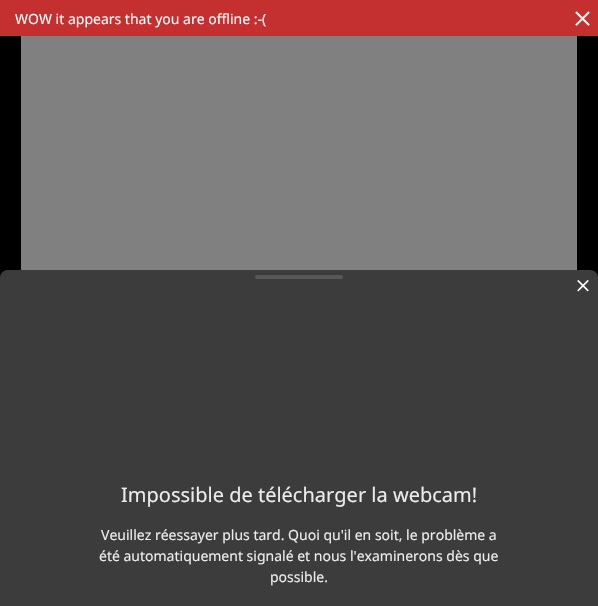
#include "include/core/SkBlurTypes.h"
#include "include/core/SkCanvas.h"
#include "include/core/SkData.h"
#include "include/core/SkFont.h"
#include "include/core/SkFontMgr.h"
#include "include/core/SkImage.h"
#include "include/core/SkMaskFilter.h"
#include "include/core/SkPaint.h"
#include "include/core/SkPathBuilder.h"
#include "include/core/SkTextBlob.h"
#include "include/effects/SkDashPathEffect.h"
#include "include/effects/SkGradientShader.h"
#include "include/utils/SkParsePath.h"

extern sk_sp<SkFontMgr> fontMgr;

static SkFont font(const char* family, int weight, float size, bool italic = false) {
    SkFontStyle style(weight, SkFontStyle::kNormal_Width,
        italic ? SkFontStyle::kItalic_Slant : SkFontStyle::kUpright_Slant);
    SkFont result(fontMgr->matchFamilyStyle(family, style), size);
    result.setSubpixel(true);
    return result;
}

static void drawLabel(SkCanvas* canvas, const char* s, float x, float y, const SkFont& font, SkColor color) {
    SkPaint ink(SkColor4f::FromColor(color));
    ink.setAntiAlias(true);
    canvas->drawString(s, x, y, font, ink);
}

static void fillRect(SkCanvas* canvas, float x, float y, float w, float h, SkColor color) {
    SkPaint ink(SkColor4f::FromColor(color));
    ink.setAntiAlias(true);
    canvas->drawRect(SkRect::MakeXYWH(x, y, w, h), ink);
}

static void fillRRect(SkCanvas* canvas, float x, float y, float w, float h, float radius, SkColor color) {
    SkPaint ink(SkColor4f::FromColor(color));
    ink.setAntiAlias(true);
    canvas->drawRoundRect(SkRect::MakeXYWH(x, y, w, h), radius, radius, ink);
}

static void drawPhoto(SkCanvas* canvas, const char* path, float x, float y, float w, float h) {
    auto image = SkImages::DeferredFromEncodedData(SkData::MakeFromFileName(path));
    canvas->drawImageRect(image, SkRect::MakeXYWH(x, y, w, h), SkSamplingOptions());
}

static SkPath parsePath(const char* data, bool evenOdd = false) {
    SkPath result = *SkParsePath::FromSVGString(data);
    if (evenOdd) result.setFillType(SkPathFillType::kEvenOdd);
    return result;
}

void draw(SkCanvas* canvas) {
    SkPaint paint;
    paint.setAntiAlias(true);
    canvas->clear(0xFF000000);
    fillRect(canvas, 0, 0, 598, 36, 0xFFC42F2F);
    SkFont font1 = font("Noto Sans", 400, 14);
    drawLabel(canvas, "WOW it appears that you are offline :-(", 15, 24, font1, 0xFFFFFFFF);
    drawPhoto(canvas, "assets/img1.png", 575, 11, 15, 15);
    paint.setColor(0xFF3C3C3C);
    canvas->drawPath(parsePath("M8 270H590C594.5 270 598 273.5 598 278V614H0V278C0 273.5 3.5 270 8 270Z"), paint);
    fillRRect(canvas, 255, 275, 88, 4, 2, 0xFF585858);
    drawPhoto(canvas, "assets/img2.png", 577, 279, 12, 13);
    SkFont font2 = font("Noto Sans", 400, 20);
    drawLabel(canvas, "Impossible de télécharger la webcam!", 121, 502, font2, 0xFFECECEC);
    drawLabel(canvas, "Veuillez réessayer plus tard. Quoi qu'il en soit, le problème a", 101, 540, font1, 0xFFECECEC);
    drawLabel(canvas, "été automatiquement signalé et nous l'examinerons dès que", 99, 561, font1, 0xFFECECEC);
    drawLabel(canvas, "possible.", 270, 582, font1, 0xFFECECEC);
    fillRect(canvas, 21, 36, 556, 234, 0xFF808080);
}
